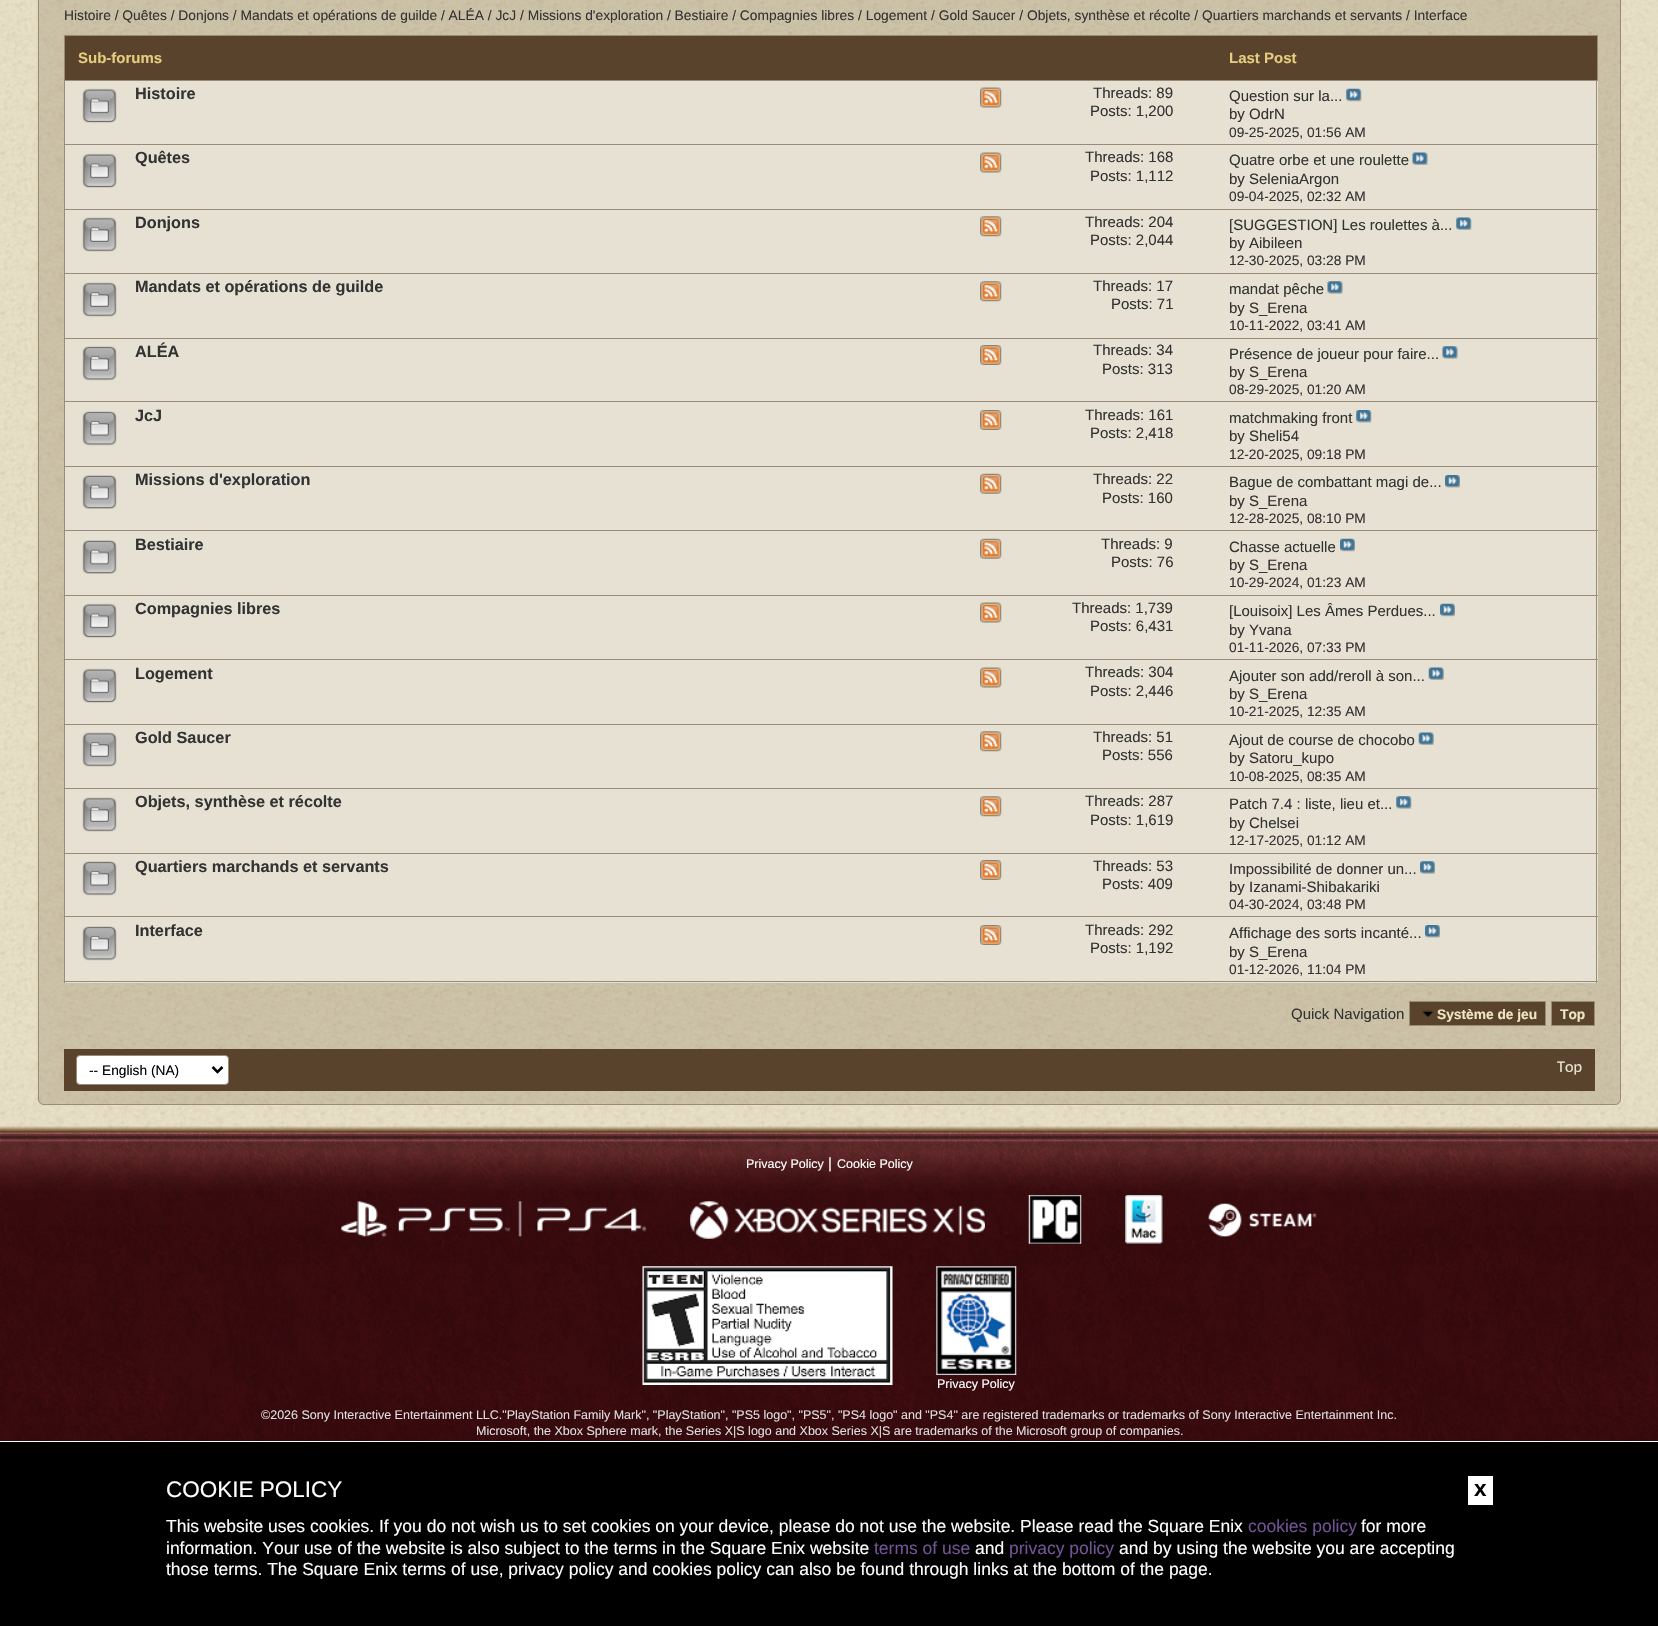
#include "include/core/SkBlurTypes.h"
#include "include/core/SkCanvas.h"
#include "include/core/SkData.h"
#include "include/core/SkFont.h"
#include "include/core/SkFontMgr.h"
#include "include/core/SkImage.h"
#include "include/core/SkMaskFilter.h"
#include "include/core/SkPaint.h"
#include "include/core/SkPathBuilder.h"
#include "include/core/SkTextBlob.h"
#include "include/effects/SkDashPathEffect.h"
#include "include/effects/SkGradientShader.h"
#include "include/utils/SkParsePath.h"

extern sk_sp<SkFontMgr> fontMgr;

static SkFont font(const char* family, int weight, float size, bool italic = false) {
    SkFontStyle style(weight, SkFontStyle::kNormal_Width,
        italic ? SkFontStyle::kItalic_Slant : SkFontStyle::kUpright_Slant);
    SkFont result(fontMgr->matchFamilyStyle(family, style), size);
    result.setSubpixel(true);
    return result;
}

static void drawLabel(SkCanvas* canvas, const char* s, float x, float y, const SkFont& font, SkColor color) {
    SkPaint ink(SkColor4f::FromColor(color));
    ink.setAntiAlias(true);
    canvas->drawString(s, x, y, font, ink);
}

static void fillRect(SkCanvas* canvas, float x, float y, float w, float h, SkColor color) {
    SkPaint ink(SkColor4f::FromColor(color));
    ink.setAntiAlias(true);
    canvas->drawRect(SkRect::MakeXYWH(x, y, w, h), ink);
}

static void drawPhoto(SkCanvas* canvas, const char* path, float x, float y, float w, float h) {
    auto image = SkImages::DeferredFromEncodedData(SkData::MakeFromFileName(path));
    canvas->drawImageRect(image, SkRect::MakeXYWH(x, y, w, h), SkSamplingOptions());
}

static SkPath parsePath(const char* data, bool evenOdd = false) {
    SkPath result = *SkParsePath::FromSVGString(data);
    if (evenOdd) result.setFillType(SkPathFillType::kEvenOdd);
    return result;
}

void draw(SkCanvas* canvas) {
    SkPaint paint;
    paint.setAntiAlias(true);
    canvas->clear(0xFFFFFFFF);
    drawPhoto(canvas, "assets/img1.png", 0, 0, 1658, 1125);
    drawPhoto(canvas, "assets/img2.png", 37, 0, 1584, 1105);
    paint.setStroke(true);
    paint.setStrokeWidth(1);
    paint.setColor(0xFF998A7A);
    canvas->drawRoundRect(SkRect::MakeXYWH(38.5f, -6.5f, 1582, 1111), 5.5f, 5.5f, paint);
    SkFont font1 = font("Liberation Sans", 400, 13.81f);
    drawLabel(canvas, "Histoire / Quêtes / Donjons / Mandats et opérations de guilde / ALÉA / JcJ / Missions d'exploration / Bestiaire / Compagnies libres / Logement / Gold Saucer / Objets, synthèse et récolte / Quartiers marchands et servants / Interface", 64, 20, font1, 0xFF333333);
    paint.setStroke(false);
    paint.setColor(0xFF59432D);
    canvas->drawRect(SkRect::MakeXYWH(64.5f, 35.5f, 1533, 45), paint);
    paint.setStroke(true);
    paint.setColor(0xFF998A7A);
    canvas->drawRect(SkRect::MakeXYWH(64.5f, 35.5f, 1533, 45), paint);
    SkFont font2 = font("Liberation Sans", 700, 15);
    drawLabel(canvas, "Sub-forums", 78, 63, font2, 0xFFE5CC7E);
    drawLabel(canvas, "Last Post", 1229, 63, font2, 0xFFE5CC7E);
    fillRect(canvas, 65, 81, 1533, 63, 0xFFE6E1D3);
    fillRect(canvas, 1596, 81, 1, 64, 0xFF998A7A);
    fillRect(canvas, 64, 144, 1534, 1, 0xFF998A7A);
    fillRect(canvas, 64, 81, 1, 64, 0xFF998A7A);
    drawPhoto(canvas, "assets/img3.png", 82, 88, 35, 35);
    SkFont font3 = font("Liberation Sans", 700, 16.25f);
    drawLabel(canvas, "Histoire", 135, 99, font3, 0xFF333333);
    drawPhoto(canvas, "assets/img4.png", 980, 87, 22, 21);
    SkFont font4 = font("Liberation Sans", 400, 15);
    drawLabel(canvas, "Threads: 89", 1093, 98, font4, 0xFF333333);
    drawLabel(canvas, "Posts: 1,200", 1090, 116, font4, 0xFF333333);
    drawLabel(canvas, "Question sur la...", 1229, 101, font4, 0xFF333333);
    drawPhoto(canvas, "assets/img5.png", 1346, 88, 16, 14);
    drawLabel(canvas, "by OdrN", 1229, 119, font4, 0xFF333333);
    SkFont font5 = font("Liberation Sans", 400, 13.75f);
    drawLabel(canvas, "09-25-2025, 01:56 AM", 1229, 137, font5, 0xFF333333);
    fillRect(canvas, 65, 145, 1533, 64, 0xFFE6E1D3);
    fillRect(canvas, 1596, 145, 1, 65, 0xFF998A7A);
    fillRect(canvas, 64, 209, 1534, 1, 0xFF998A7A);
    fillRect(canvas, 64, 145, 1, 65, 0xFF998A7A);
    drawPhoto(canvas, "assets/img6.png", 82, 153, 35, 35);
    drawLabel(canvas, "Quêtes", 135, 163, font3, 0xFF333333);
    drawPhoto(canvas, "assets/img4.png", 980, 152, 22, 21);
    drawLabel(canvas, "Threads: 168", 1085, 162, font4, 0xFF333333);
    drawLabel(canvas, "Posts: 1,112", 1090, 181, font4, 0xFF333333);
    drawLabel(canvas, "Quatre orbe et une roulette", 1229, 165, font4, 0xFF333333);
    drawPhoto(canvas, "assets/img7.png", 1412, 152, 16, 13);
    drawLabel(canvas, "by SeleniaArgon", 1229, 184, font4, 0xFF333333);
    drawLabel(canvas, "09-04-2025, 02:32 AM", 1229, 201, font5, 0xFF333333);
    fillRect(canvas, 65, 210, 1533, 63, 0xFFE6E1D3);
    fillRect(canvas, 1596, 210, 1, 64, 0xFF998A7A);
    fillRect(canvas, 64, 273, 1534, 1, 0xFF998A7A);
    fillRect(canvas, 64, 210, 1, 64, 0xFF998A7A);
    drawPhoto(canvas, "assets/img8.png", 82, 217, 35, 35);
    drawLabel(canvas, "Donjons", 135, 228, font3, 0xFF333333);
    drawPhoto(canvas, "assets/img9.png", 980, 216, 22, 21);
    drawLabel(canvas, "Threads: 204", 1085, 227, font4, 0xFF333333);
    drawLabel(canvas, "Posts: 2,044", 1090, 245, font4, 0xFF333333);
    drawLabel(canvas, "[SUGGESTION] Les roulettes à...", 1229, 230, font4, 0xFF333333);
    drawPhoto(canvas, "assets/img10.png", 1456, 217, 16, 13);
    drawLabel(canvas, "by Aibileen", 1229, 248, font4, 0xFF333333);
    drawLabel(canvas, "12-30-2025, 03:28 PM", 1229, 265, font5, 0xFF333333);
    fillRect(canvas, 65, 274, 1533, 64, 0xFFE6E1D3);
    fillRect(canvas, 1596, 274, 1, 65, 0xFF998A7A);
    fillRect(canvas, 64, 338, 1534, 1, 0xFF998A7A);
    fillRect(canvas, 64, 274, 1, 65, 0xFF998A7A);
    drawPhoto(canvas, "assets/img8.png", 82, 282, 35, 35);
    drawLabel(canvas, "Mandats et opérations de guilde", 135, 292, font3, 0xFF333333);
    drawPhoto(canvas, "assets/img9.png", 980, 281, 22, 21);
    drawLabel(canvas, "Threads: 17", 1093, 291, font4, 0xFF333333);
    drawLabel(canvas, "Posts: 71", 1111, 309, font4, 0xFF333333);
    drawLabel(canvas, "mandat pêche", 1229, 294, font4, 0xFF333333);
    drawPhoto(canvas, "assets/img11.png", 1327, 281, 16, 13);
    drawLabel(canvas, "by S_Erena", 1229, 313, font4, 0xFF333333);
    drawLabel(canvas, "10-11-2022, 03:41 AM", 1229, 330, font5, 0xFF333333);
    fillRect(canvas, 65, 339, 1533, 191, 0xFFE6E1D3);
    fillRect(canvas, 1596, 339, 1, 192, 0xFF998A7A);
    fillRect(canvas, 64, 401, 1534, 1, 0xFF998A7A);
    fillRect(canvas, 64, 339, 1, 64, 0xFF998A7A);
    drawPhoto(canvas, "assets/img12.png", 82, 346, 35, 35);
    drawLabel(canvas, "ALÉA", 135, 357, font3, 0xFF333333);
    drawPhoto(canvas, "assets/img13.png", 980, 345, 22, 20);
    drawLabel(canvas, "Threads: 34", 1093, 355, font4, 0xFF333333);
    drawLabel(canvas, "Posts: 313", 1102, 374, font4, 0xFF333333);
    drawLabel(canvas, "Présence de joueur pour faire...", 1229, 359, font4, 0xFF333333);
    drawPhoto(canvas, "assets/img14.png", 1442, 346, 16, 13);
    drawLabel(canvas, "by S_Erena", 1229, 377, font4, 0xFF333333);
    drawLabel(canvas, "08-29-2025, 01:20 AM", 1229, 394, font5, 0xFF333333);
    fillRect(canvas, 64, 466, 1534, 1, 0xFF998A7A);
    fillRect(canvas, 64, 403, 1, 65, 0xFF998A7A);
    drawPhoto(canvas, "assets/img15.png", 82, 411, 35, 35);
    drawLabel(canvas, "JcJ", 135, 421, font3, 0xFF333333);
    drawPhoto(canvas, "assets/img13.png", 980, 410, 22, 20);
    drawLabel(canvas, "Threads: 161", 1085, 420, font4, 0xFF333333);
    drawLabel(canvas, "Posts: 2,418", 1090, 438, font4, 0xFF333333);
    drawLabel(canvas, "matchmaking front", 1229, 423, font4, 0xFF333333);
    drawPhoto(canvas, "assets/img16.png", 1356, 410, 16, 13);
    drawLabel(canvas, "by Sheli54", 1229, 441, font4, 0xFF333333);
    drawLabel(canvas, "12-20-2025, 09:18 PM", 1229, 459, font5, 0xFF333333);
    fillRect(canvas, 64, 530, 1534, 1, 0xFF998A7A);
    fillRect(canvas, 64, 468, 1, 63, 0xFF998A7A);
    drawPhoto(canvas, "assets/img17.png", 82, 475, 35, 34);
    drawLabel(canvas, "Missions d'exploration", 135, 485, font3, 0xFF333333);
    drawPhoto(canvas, "assets/img18.png", 980, 473, 22, 21);
    drawLabel(canvas, "Threads: 22", 1093, 484, font4, 0xFF333333);
    drawLabel(canvas, "Posts: 160", 1102, 503, font4, 0xFF333333);
    drawLabel(canvas, "Bague de combattant magi de...", 1229, 487, font4, 0xFF333333);
    drawPhoto(canvas, "assets/img19.png", 1445, 475, 15, 13);
    drawLabel(canvas, "by S_Erena", 1229, 506, font4, 0xFF333333);
    drawLabel(canvas, "12-28-2025, 08:10 PM", 1229, 523, font5, 0xFF333333);
    fillRect(canvas, 65, 531, 1533, 64, 0xFFE6E1D3);
    fillRect(canvas, 1596, 531, 1, 65, 0xFF998A7A);
    fillRect(canvas, 64, 595, 1534, 1, 0xFF998A7A);
    fillRect(canvas, 64, 531, 1, 65, 0xFF998A7A);
    drawPhoto(canvas, "assets/img17.png", 82, 540, 35, 34);
    drawLabel(canvas, "Bestiaire", 135, 550, font3, 0xFF333333);
    drawPhoto(canvas, "assets/img18.png", 980, 538, 22, 21);
    drawLabel(canvas, "Threads: 9", 1101, 549, font4, 0xFF333333);
    drawLabel(canvas, "Posts: 76", 1111, 567, font4, 0xFF333333);
    drawLabel(canvas, "Chasse actuelle", 1229, 552, font4, 0xFF333333);
    drawPhoto(canvas, "assets/img20.png", 1340, 538, 15, 14);
    drawLabel(canvas, "by S_Erena", 1229, 570, font4, 0xFF333333);
    drawLabel(canvas, "10-29-2024, 01:23 AM", 1229, 587, font5, 0xFF333333);
    fillRect(canvas, 65, 596, 1533, 63, 0xFFE6E1D3);
    fillRect(canvas, 1596, 596, 1, 64, 0xFF998A7A);
    fillRect(canvas, 64, 659, 1534, 1, 0xFF998A7A);
    fillRect(canvas, 64, 596, 1, 64, 0xFF998A7A);
    drawPhoto(canvas, "assets/img6.png", 82, 603, 35, 35);
    drawLabel(canvas, "Compagnies libres", 135, 614, font3, 0xFF333333);
    drawPhoto(canvas, "assets/img21.png", 980, 602, 22, 21);
    drawLabel(canvas, "Threads: 1,739", 1072, 613, font4, 0xFF333333);
    drawLabel(canvas, "Posts: 6,431", 1090, 631, font4, 0xFF333333);
    drawLabel(canvas, "[Louisoix] Les Âmes Perdues...", 1229, 616, font4, 0xFF333333);
    drawPhoto(canvas, "assets/img22.png", 1440, 603, 15, 14);
    drawLabel(canvas, "by Yvana", 1229, 635, font4, 0xFF333333);
    drawLabel(canvas, "01-11-2026, 07:33 PM", 1229, 652, font5, 0xFF333333);
    fillRect(canvas, 65, 660, 1533, 64, 0xFFE6E1D3);
    fillRect(canvas, 1596, 660, 1, 65, 0xFF998A7A);
    fillRect(canvas, 64, 724, 1534, 1, 0xFF998A7A);
    fillRect(canvas, 64, 660, 1, 65, 0xFF998A7A);
    drawPhoto(canvas, "assets/img6.png", 82, 668, 35, 35);
    drawLabel(canvas, "Logement", 135, 679, font3, 0xFF333333);
    drawPhoto(canvas, "assets/img4.png", 980, 667, 22, 21);
    drawLabel(canvas, "Threads: 304", 1085, 677, font4, 0xFF333333);
    drawLabel(canvas, "Posts: 2,446", 1090, 696, font4, 0xFF333333);
    drawLabel(canvas, "Ajouter son add/reroll à son...", 1229, 681, font4, 0xFF333333);
    drawPhoto(canvas, "assets/img23.png", 1428, 667, 16, 13);
    drawLabel(canvas, "by S_Erena", 1229, 699, font4, 0xFF333333);
    drawLabel(canvas, "10-21-2025, 12:35 AM", 1229, 716, font5, 0xFF333333);
    fillRect(canvas, 65, 725, 1533, 63, 0xFFE6E1D3);
    fillRect(canvas, 1596, 725, 1, 64, 0xFF998A7A);
    fillRect(canvas, 64, 788, 1534, 1, 0xFF998A7A);
    fillRect(canvas, 64, 725, 1, 64, 0xFF998A7A);
    drawPhoto(canvas, "assets/img8.png", 82, 732, 35, 35);
    drawLabel(canvas, "Gold Saucer", 135, 743, font3, 0xFF333333);
    drawPhoto(canvas, "assets/img9.png", 980, 731, 22, 21);
    drawLabel(canvas, "Threads: 51", 1093, 742, font4, 0xFF333333);
    drawLabel(canvas, "Posts: 556", 1102, 760, font4, 0xFF333333);
    drawLabel(canvas, "Ajout de course de chocobo", 1229, 745, font4, 0xFF333333);
    drawPhoto(canvas, "assets/img23.png", 1418, 732, 16, 13);
    drawLabel(canvas, "by Satoru_kupo", 1229, 763, font4, 0xFF333333);
    drawLabel(canvas, "10-08-2025, 08:35 AM", 1229, 781, font5, 0xFF333333);
    fillRect(canvas, 65, 789, 1533, 64, 0xFFE6E1D3);
    fillRect(canvas, 1596, 789, 1, 65, 0xFF998A7A);
    fillRect(canvas, 64, 853, 1534, 1, 0xFF998A7A);
    fillRect(canvas, 64, 789, 1, 65, 0xFF998A7A);
    drawPhoto(canvas, "assets/img8.png", 82, 797, 35, 35);
    drawLabel(canvas, "Objets, synthèse et récolte", 135, 807, font3, 0xFF333333);
    drawPhoto(canvas, "assets/img9.png", 980, 796, 22, 21);
    drawLabel(canvas, "Threads: 287", 1085, 806, font4, 0xFF333333);
    drawLabel(canvas, "Posts: 1,619", 1090, 825, font4, 0xFF333333);
    drawLabel(canvas, "Patch 7.4 : liste, lieu et...", 1229, 809, font4, 0xFF333333);
    drawPhoto(canvas, "assets/img24.png", 1396, 796, 16, 13);
    drawLabel(canvas, "by Chelsei", 1229, 828, font4, 0xFF333333);
    drawLabel(canvas, "12-17-2025, 01:12 AM", 1229, 845, font5, 0xFF333333);
    fillRect(canvas, 65, 854, 1533, 129, 0xFFE6E1D3);
    fillRect(canvas, 1596, 854, 1, 129, 0xFF998A7A);
    fillRect(canvas, 64, 916, 1534, 1, 0xFF998A7A);
    fillRect(canvas, 64, 854, 1, 64, 0xFF998A7A);
    drawPhoto(canvas, "assets/img12.png", 82, 861, 35, 35);
    drawLabel(canvas, "Quartiers marchands et servants", 135, 872, font3, 0xFF333333);
    drawPhoto(canvas, "assets/img13.png", 980, 860, 22, 20);
    drawLabel(canvas, "Threads: 53", 1093, 871, font4, 0xFF333333);
    drawLabel(canvas, "Posts: 409", 1102, 889, font4, 0xFF333333);
    drawLabel(canvas, "Impossibilité de donner un...", 1229, 874, font4, 0xFF333333);
    drawPhoto(canvas, "assets/img25.png", 1420, 861, 15, 13);
    drawLabel(canvas, "by Izanami-Shibakariki", 1229, 892, font4, 0xFF333333);
    drawLabel(canvas, "04-30-2024, 03:48 PM", 1229, 909, font5, 0xFF333333);
    fillRect(canvas, 64, 981, 1534, 1, 0xFF998A7A);
    fillRect(canvas, 64, 918, 1, 65, 0xFF998A7A);
    drawPhoto(canvas, "assets/img15.png", 82, 926, 35, 35);
    drawLabel(canvas, "Interface", 135, 936, font3, 0xFF333333);
    drawPhoto(canvas, "assets/img13.png", 980, 925, 22, 20);
    drawLabel(canvas, "Threads: 292", 1085, 935, font4, 0xFF333333);
    drawLabel(canvas, "Posts: 1,192", 1090, 953, font4, 0xFF333333);
    drawLabel(canvas, "Affichage des sorts incanté...", 1229, 938, font4, 0xFF333333);
    drawPhoto(canvas, "assets/img19.png", 1425, 925, 15, 13);
    drawLabel(canvas, "by S_Erena", 1229, 957, font4, 0xFF333333);
    drawLabel(canvas, "01-12-2026, 11:04 PM", 1229, 974, font5, 0xFF333333);
    drawLabel(canvas, "Quick Navigation", 1291, 1019, font4, 0xFF333333);
    paint.setStroke(false);
    paint.setColor(0xFF59432D);
    canvas->drawRect(SkRect::MakeXYWH(1409.5f, 1001.5f, 136, 24), paint);
    paint.setStroke(true);
    paint.setColor(0xFF998A7A);
    canvas->drawRect(SkRect::MakeXYWH(1409.5f, 1001.5f, 136, 24), paint);
    drawPhoto(canvas, "assets/img26.png", 1422, 1010, 12, 7);
    SkFont font6 = font("Liberation Sans", 700, 13.75f);
    drawLabel(canvas, "Système de jeu", 1437, 1019, font6, 0xFFF2E6C2);
    paint.setStroke(false);
    paint.setColor(0xFF59432D);
    canvas->drawRect(SkRect::MakeXYWH(1551.5f, 1001.5f, 43, 24), paint);
    paint.setStroke(true);
    paint.setColor(0xFF998A7A);
    canvas->drawRect(SkRect::MakeXYWH(1551.5f, 1001.5f, 43, 24), paint);
    drawLabel(canvas, "Top", 1560, 1019, font6, 0xFFF2E6C2);
    fillRect(canvas, 64, 1049, 1531, 42, 0xFF59432D);
    paint.setStroke(false);
    paint.setColor(0xFFFFFFFF);
    canvas->drawRoundRect(SkRect::MakeXYWH(76.5f, 1055.5f, 152, 29), 3.5f, 3.5f, paint);
    paint.setStroke(true);
    paint.setColor(0xFF998A7A);
    canvas->drawRoundRect(SkRect::MakeXYWH(76.5f, 1055.5f, 152, 29), 3.5f, 3.5f, paint);
    paint.setStrokeWidth(2.5f);
    paint.setColor(0xFF000000);
    canvas->drawPath(parsePath("M212.5 1067L217.5 1072L222.5 1067"), paint);
    drawLabel(canvas, "-- English (NA)", 89, 1075, font5, 0xFF000000);
    SkFont font7 = font("Carlito", 400, 16.25f);
    drawLabel(canvas, "Top", 1557, 1072, font7, 0xFFE6E1D3);
    drawPhoto(canvas, "assets/img27.png", 0, 1186, 1658, 255);
    drawPhoto(canvas, "assets/img28.png", 0, 1125, 1658, 101);
    SkFont font8 = font("Liberation Sans", 400, 12.5f);
    drawLabel(canvas, "Privacy Policy", 746, 1168, font8, 0xFFFFFFFF);
    drawLabel(canvas, "|", 828, 1168, font4, 0xFFFFFFFF);
    drawLabel(canvas, "Cookie Policy", 837, 1168, font8, 0xFFFFFFFF);
    drawPhoto(canvas, "assets/img29.png", 341, 1201, 306, 36);
    drawPhoto(canvas, "assets/img30.png", 690, 1201, 295, 38);
    drawPhoto(canvas, "assets/img31.png", 1028, 1195, 54, 49);
    drawPhoto(canvas, "assets/img32.png", 1125, 1195, 38, 49);
    drawPhoto(canvas, "assets/img33.png", 1208, 1203, 109, 34);
    drawPhoto(canvas, "assets/img34.png", 642, 1266, 251, 119);
    drawPhoto(canvas, "assets/img35.png", 936, 1266, 81, 109);
    drawLabel(canvas, "Privacy Policy", 937, 1388, font8, 0xFFFFFFFF);
    drawLabel(canvas, "©2026 Sony Interactive Entertainment LLC.\"PlayStation Family Mark\", \"PlayStation\", \"PS5 logo\", \"PS5\", \"PS4 logo\" and \"PS4\" are registered trademarks or trademarks of Sony Interactive Entertainment Inc.", 261, 1419, font8, 0xFFDEDEDE);
    drawLabel(canvas, "Microsoft, the Xbox Sphere mark, the Series X|S logo and Xbox Series X|S are trademarks of the Microsoft group of companies.", 476, 1435, font8, 0xFFDEDEDE);
    fillRect(canvas, 0, 1442, 1658, 184, 0xFF000000);
    SkFont font9 = font("Liberation Sans", 400, 22.5f);
    drawLabel(canvas, "COOKIE POLICY", 166, 1497, font9, 0xFFFFFFFF);
    fillRect(canvas, 1468, 1476, 25, 29, 0xFFFFFFFF);
    SkFont font10 = font("Liberation Sans", 700, 22.5f);
    drawLabel(canvas, "x", 1474, 1496, font10, 0xFF000000);
    SkFont font11 = font("Liberation Sans", 400, 17.5f);
    drawLabel(canvas, "This website uses cookies. If you do not wish us to set cookies on your device, please do not use the website. Please read the Square Enix", 166, 1532, font11, 0xFFFFFFFF);
    drawLabel(canvas, "cookies policy", 1248, 1532, font11, 0xFF725396);
    drawLabel(canvas, "for more", 1361, 1532, font11, 0xFFFFFFFF);
    drawLabel(canvas, "information. Your use of the website is also subject to the terms in the Square Enix website", 166, 1554, font11, 0xFFFFFFFF);
    drawLabel(canvas, "terms of use", 874, 1554, font11, 0xFF725396);
    drawLabel(canvas, "and", 975, 1554, font11, 0xFFFFFFFF);
    drawLabel(canvas, "privacy policy", 1009, 1554, font11, 0xFF725396);
    drawLabel(canvas, "and by using the website you are accepting", 1119, 1554, font11, 0xFFFFFFFF);
    drawLabel(canvas, "those terms. The Square Enix terms of use, privacy policy and cookies policy can also be found through links at the bottom of the page.", 166, 1575, font11, 0xFFFFFFFF);
}
